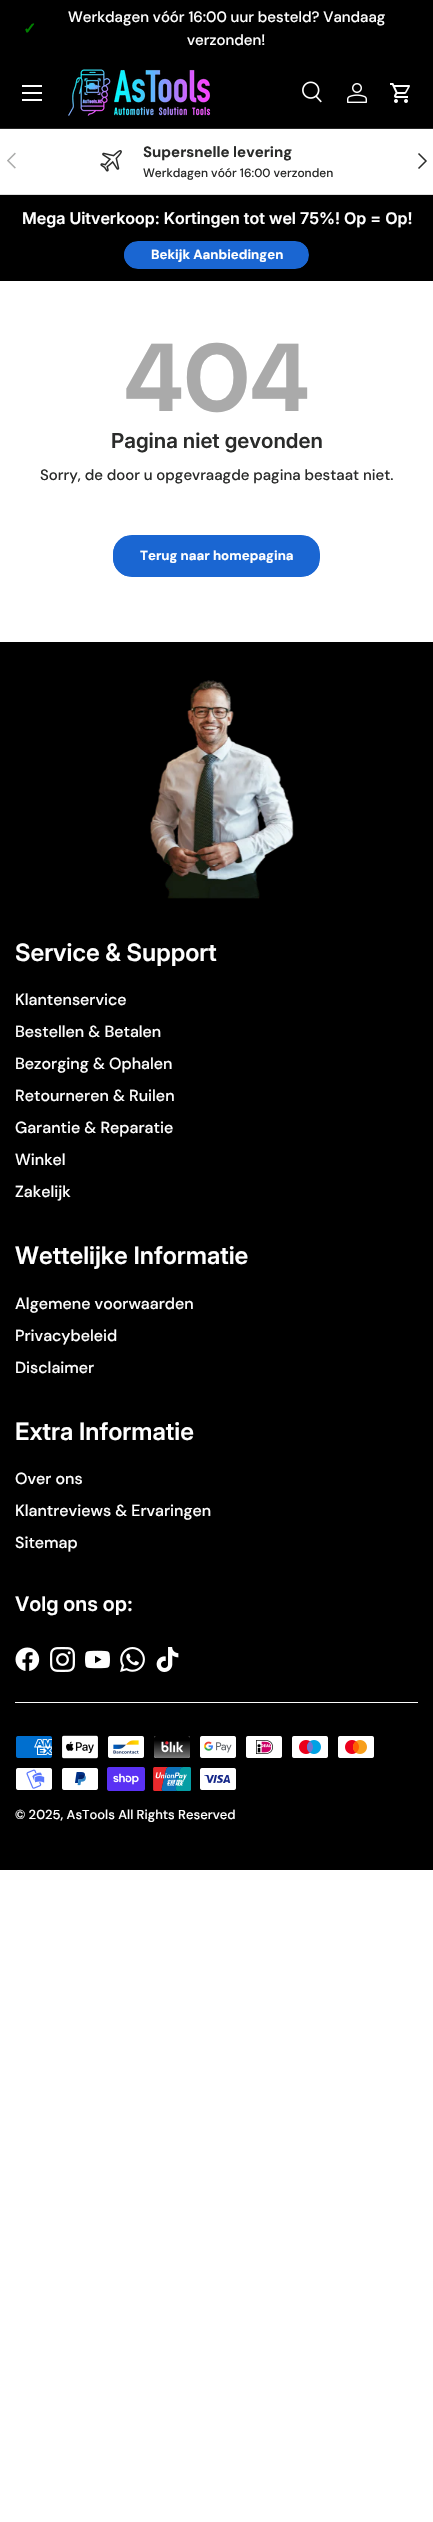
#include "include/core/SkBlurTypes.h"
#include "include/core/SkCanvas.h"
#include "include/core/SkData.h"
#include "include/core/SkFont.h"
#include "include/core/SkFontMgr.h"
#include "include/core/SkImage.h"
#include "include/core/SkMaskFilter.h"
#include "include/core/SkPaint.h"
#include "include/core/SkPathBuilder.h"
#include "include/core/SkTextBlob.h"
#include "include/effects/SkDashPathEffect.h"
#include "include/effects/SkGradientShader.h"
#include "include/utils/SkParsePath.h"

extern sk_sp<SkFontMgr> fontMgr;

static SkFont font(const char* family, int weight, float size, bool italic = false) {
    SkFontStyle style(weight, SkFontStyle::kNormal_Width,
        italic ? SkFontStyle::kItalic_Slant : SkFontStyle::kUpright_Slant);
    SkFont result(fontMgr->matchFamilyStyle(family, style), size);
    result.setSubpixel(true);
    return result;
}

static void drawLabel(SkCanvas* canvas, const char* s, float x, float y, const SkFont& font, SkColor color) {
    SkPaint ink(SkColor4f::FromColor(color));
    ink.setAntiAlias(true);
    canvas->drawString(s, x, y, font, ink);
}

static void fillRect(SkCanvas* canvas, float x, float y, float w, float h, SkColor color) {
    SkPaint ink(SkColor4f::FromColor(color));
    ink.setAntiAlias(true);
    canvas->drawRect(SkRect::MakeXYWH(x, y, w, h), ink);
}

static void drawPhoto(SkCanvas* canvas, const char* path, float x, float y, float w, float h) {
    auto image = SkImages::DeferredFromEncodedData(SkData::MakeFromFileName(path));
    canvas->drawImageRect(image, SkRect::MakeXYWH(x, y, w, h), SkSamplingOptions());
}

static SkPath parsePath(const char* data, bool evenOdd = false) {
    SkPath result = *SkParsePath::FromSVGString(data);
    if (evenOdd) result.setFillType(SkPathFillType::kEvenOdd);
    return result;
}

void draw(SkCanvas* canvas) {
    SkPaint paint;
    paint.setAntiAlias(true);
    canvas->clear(0xFFFFFFFF);
    fillRect(canvas, 0, 0, 433, 128, 0xFF000000);
    fillRect(canvas, 0, 128, 433, 1, 0xFF262626);
    fillRect(canvas, 22, 85, 20, 2, 0xFFFFFFFF);
    fillRect(canvas, 22, 99, 20, 2, 0xFFFFFFFF);
    fillRect(canvas, 22, 92, 20, 2, 0xFFFFFFFF);
    drawPhoto(canvas, "assets/img1.png", 68, 69, 143, 47);
    drawPhoto(canvas, "assets/img2.png", 302, 81, 20, 22);
    drawPhoto(canvas, "assets/img3.png", 347, 83, 20, 20);
    drawPhoto(canvas, "assets/img4.png", 390, 83, 20, 20);
    SkFont font1 = font("DejaVu Sans", 700, 16);
    drawLabel(canvas, "✓", 23, 34, font1, 0xFF008000);
    SkFont font2 = font("DM Sans", 500, 15);
    drawLabel(canvas, "Werkdagen vóór 16:00 uur besteld? Vandaag", 68, 22, font2, 0xFFFFFFFF);
    drawLabel(canvas, "verzonden!", 187, 45, font2, 0xFFFFFFFF);
    fillRect(canvas, 0, 194, 433, 1, 0xFFDFDFDF);
    drawPhoto(canvas, "assets/img5.png", 100, 150, 22, 22);
    SkFont font3 = font("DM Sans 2", 700, 15);
    drawLabel(canvas, "Supersnelle levering", 143, 157, font3, 0xFF2A2B2A);
    SkFont font4 = font("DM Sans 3", 500, 12);
    drawLabel(canvas, "Werkdagen vóór 16:00 verzonden", 143, 177, font4, 0xFF2A2B2A);
    drawPhoto(canvas, "assets/img6.png", 7, 152, 9, 17);
    paint.setStroke(true);
    paint.setStrokeWidth(1.5f);
    paint.setColor(0xFF2A2B2A);
    canvas->drawPath(parsePath("M418.5 153.5L426 161L418.5 168.5"), paint);
    fillRect(canvas, 0, 195, 433, 86, 0xFF000000);
    SkFont font5 = font("Inter", 600, 16.1f);
    drawLabel(canvas, "Mega Uitverkoop: Kortingen tot wel 75%! Op = Op!", 22, 224, font5, 0xFFFFFFFF);
    canvas->save();
    canvas->clipPath(parsePath("M138 241H295C302.5 241 309 247.5 309 255C309 262.5 302.5 269 295 269H138C130.5 269 124 262.5 124 255C124 247.5 130.5 241 138 241Z"), true);
    paint.setStroke(false);
    {
        const SkColor colors[] = {0xFF4986DB, 0xFF1A66D2, 0xFF1A66D2};
        const float stops[] = {0.6f, 0.6f, 1};
        const SkPoint ends[] = {{-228, 190}, {295, 320}};
        paint.setShader(SkGradientShader::MakeLinear(ends, colors, stops, 3, SkTileMode::kClamp));
        paint.setAlpha(255);
    }
    canvas->drawRect(SkRect::MakeXYWH(124, 242, 184, 26), paint);
    canvas->restore();
    paint.setStroke(true);
    paint.setStrokeWidth(1);
    paint.setShader(nullptr);
    paint.setColor(0xFF1A66D2);
    canvas->drawRoundRect(SkRect::MakeXYWH(124.5f, 241.5f, 184, 27), 13.5f, 13.5f, paint);
    SkFont font6 = font("DM Sans 3", 700, 13.25f);
    drawLabel(canvas, "Bekijk Aanbiedingen", 151, 259, font6, 0xFFFFFFFF);
    SkFont font7 = font("DM Sans", 700, 96);
    drawLabel(canvas, "404", 124, 411, font7, 0xFFAAAAAA);
    SkFont font8 = font("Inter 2", 600, 20.75f);
    drawLabel(canvas, "Pagina niet gevonden", 111, 448, font8, 0xFF2A2B2A);
    drawLabel(canvas, "Sorry, de door u opgevraagde pagina bestaat niet.", 40, 480, font2, 0xFF2A2B2A);
    canvas->save();
    canvas->clipPath(parsePath("M132 535H301C311.5 535 320 543.5 320 554V558C320 568.5 311.5 577 301 577H132C121.5 577 113 568.5 113 558V554C113 543.5 121.5 535 132 535Z"), true);
    paint.setStroke(false);
    {
        const SkColor colors[] = {0xFF4986DB, 0xFF1A66D2, 0xFF1A66D2};
        const float stops[] = {0.6f, 0.6f, 1};
        const SkPoint ends[] = {{-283, 483}, {306, 629}};
        paint.setShader(SkGradientShader::MakeLinear(ends, colors, stops, 3, SkTileMode::kClamp));
        paint.setAlpha(255);
    }
    canvas->drawRect(SkRect::MakeXYWH(113, 536, 206, 40), paint);
    canvas->restore();
    paint.setStroke(true);
    paint.setShader(nullptr);
    paint.setColor(0xFF1A66D2);
    canvas->drawRoundRect(SkRect::MakeXYWH(113.5f, 535.5f, 206, 41), 18.5f, 18.5f, paint);
    drawLabel(canvas, "Terug naar homepagina", 140, 560, font6, 0xFFFFFFFF);
    fillRect(canvas, 0, 642, 433, 1228, 0xFF000000);
    fillRect(canvas, 15, 1702, 403, 1, 0xFFFAFAFA);
    drawPhoto(canvas, "assets/img7.png", 150, 680, 144, 219);
    SkFont font9 = font("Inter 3", 600, 24);
    drawLabel(canvas, "Service & Support", 15, 961, font9, 0xFFFFFFFF);
    SkFont font10 = font("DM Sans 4", 500, 16);
    drawLabel(canvas, "Klantenservice", 15, 1005, font10, 0xFFFFFFFF);
    drawLabel(canvas, "Bestellen & Betalen", 15, 1037, font10, 0xFFFFFFFF);
    drawLabel(canvas, "Bezorging & Ophalen", 15, 1069, font10, 0xFFFFFFFF);
    drawLabel(canvas, "Retourneren & Ruilen", 15, 1101, font10, 0xFFFFFFFF);
    drawLabel(canvas, "Garantie & Reparatie", 15, 1133, font10, 0xFFFFFFFF);
    drawLabel(canvas, "Winkel", 15, 1165, font10, 0xFFFFFFFF);
    drawLabel(canvas, "Zakelijk", 15, 1197, font10, 0xFFFFFFFF);
    drawLabel(canvas, "Wettelijke Informatie", 15, 1264, font9, 0xFFFFFFFF);
    drawLabel(canvas, "Algemene voorwaarden", 15, 1309, font10, 0xFFFFFFFF);
    drawLabel(canvas, "Privacybeleid", 15, 1341, font10, 0xFFFFFFFF);
    drawLabel(canvas, "Disclaimer", 15, 1373, font10, 0xFFFFFFFF);
    drawLabel(canvas, "Extra Informatie", 15, 1440, font9, 0xFFFFFFFF);
    drawLabel(canvas, "Over ons", 15, 1484, font10, 0xFFFFFFFF);
    drawLabel(canvas, "Klantreviews & Ervaringen", 15, 1516, font10, 0xFFFFFFFF);
    drawLabel(canvas, "Sitemap", 15, 1548, font10, 0xFFFFFFFF);
    SkFont font11 = font("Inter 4", 600, 20);
    drawLabel(canvas, "Volg ons op:", 15, 1611, font11, 0xFFFFFFFF);
    drawPhoto(canvas, "assets/img8.png", 15, 1647, 25, 24);
    drawPhoto(canvas, "assets/img9.png", 50, 1647, 25, 25);
    drawPhoto(canvas, "assets/img10.png", 85, 1650, 25, 19);
    drawPhoto(canvas, "assets/img11.png", 120, 1647, 25, 25);
    drawPhoto(canvas, "assets/img12.png", 156, 1647, 23, 25);
    drawPhoto(canvas, "assets/img13.png", 16, 1736, 36, 22);
    drawPhoto(canvas, "assets/img14.png", 62, 1735, 36, 24);
    drawPhoto(canvas, "assets/img15.png", 108, 1736, 36, 22);
    drawPhoto(canvas, "assets/img16.png", 154, 1736, 36, 22);
    drawPhoto(canvas, "assets/img17.png", 200, 1736, 36, 22);
    drawPhoto(canvas, "assets/img18.png", 246, 1736, 36, 22);
    drawPhoto(canvas, "assets/img19.png", 292, 1736, 36, 22);
    drawPhoto(canvas, "assets/img20.png", 338, 1736, 36, 22);
    drawPhoto(canvas, "assets/img21.png", 16, 1768, 36, 22);
    drawPhoto(canvas, "assets/img22.png", 62, 1768, 36, 22);
    drawPhoto(canvas, "assets/img23.png", 107, 1767, 38, 24);
    drawPhoto(canvas, "assets/img24.png", 153, 1767, 38, 24);
    drawPhoto(canvas, "assets/img25.png", 200, 1768, 36, 22);
    SkFont font12 = font("DM Sans 2", 500, 13);
    drawLabel(canvas, "© 2025, AsTools All Rights Reserved", 15, 1819, font12, 0xFFFFFFFF);
}
